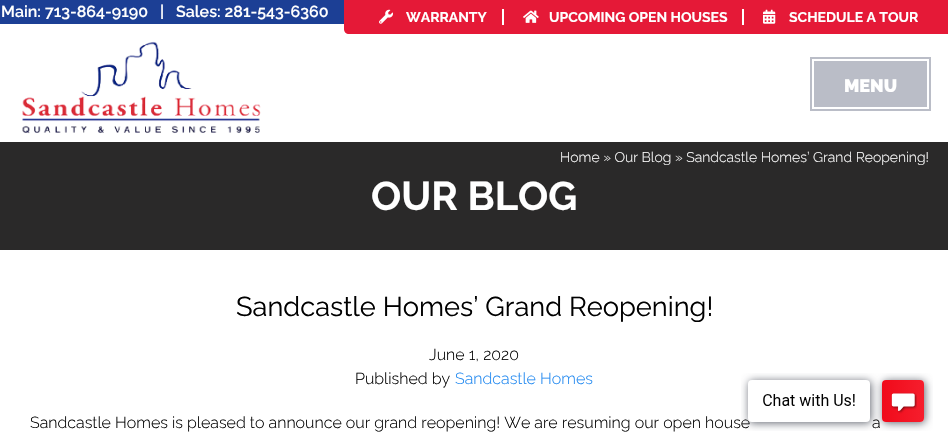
#include "include/core/SkBlurTypes.h"
#include "include/core/SkCanvas.h"
#include "include/core/SkData.h"
#include "include/core/SkFont.h"
#include "include/core/SkFontMgr.h"
#include "include/core/SkImage.h"
#include "include/core/SkMaskFilter.h"
#include "include/core/SkPaint.h"
#include "include/core/SkPathBuilder.h"
#include "include/core/SkTextBlob.h"
#include "include/effects/SkDashPathEffect.h"
#include "include/effects/SkGradientShader.h"
#include "include/utils/SkParsePath.h"

extern sk_sp<SkFontMgr> fontMgr;

static SkFont font(const char* family, int weight, float size, bool italic = false) {
    SkFontStyle style(weight, SkFontStyle::kNormal_Width,
        italic ? SkFontStyle::kItalic_Slant : SkFontStyle::kUpright_Slant);
    SkFont result(fontMgr->matchFamilyStyle(family, style), size);
    result.setSubpixel(true);
    return result;
}

static void drawLabel(SkCanvas* canvas, const char* s, float x, float y, const SkFont& font, SkColor color) {
    SkPaint ink(SkColor4f::FromColor(color));
    ink.setAntiAlias(true);
    canvas->drawString(s, x, y, font, ink);
}

static void fillRect(SkCanvas* canvas, float x, float y, float w, float h, SkColor color) {
    SkPaint ink(SkColor4f::FromColor(color));
    ink.setAntiAlias(true);
    canvas->drawRect(SkRect::MakeXYWH(x, y, w, h), ink);
}

static void drawPhoto(SkCanvas* canvas, const char* path, float x, float y, float w, float h) {
    auto image = SkImages::DeferredFromEncodedData(SkData::MakeFromFileName(path));
    canvas->drawImageRect(image, SkRect::MakeXYWH(x, y, w, h), SkSamplingOptions());
}

static SkPath parsePath(const char* data, bool evenOdd = false) {
    SkPath result = *SkParsePath::FromSVGString(data);
    if (evenOdd) result.setFillType(SkPathFillType::kEvenOdd);
    return result;
}

void draw(SkCanvas* canvas) {
    SkPaint paint;
    paint.setAntiAlias(true);
    canvas->clear(0xFFFFFFFF);
    fillRect(canvas, 0, 0, 344, 24, 0xFF1C3F95);
    SkFont font1 = font("Raleway", 600, 16);
    drawLabel(canvas, "Main: 713-864-9190", 1, 17, font1, 0xFFFFFFFF);
    drawLabel(canvas, "|", 160, 17, font1, 0xFFFFFFFF);
    drawLabel(canvas, "Sales: 281-543-6360", 176, 17, font1, 0xFFFFFFFF);
    paint.setColor(0xFFE51937);
    canvas->drawPath(parsePath("M344 0H948V34H349C346 34 344 32 344 29Z"), paint);
    fillRect(canvas, 502, 9, 2, 16, 0xFFFFFFFF);
    drawPhoto(canvas, "assets/img1.png", 379, 9, 14, 15);
    SkFont font2 = font("Raleway", 700, 14);
    drawLabel(canvas, "WARRANTY", 406, 22, font2, 0xFFFFFFFF);
    fillRect(canvas, 742, 9, 2, 16, 0xFFFFFFFF);
    drawPhoto(canvas, "assets/img2.png", 523, 10, 16, 13);
    drawLabel(canvas, "UPCOMING OPEN HOUSES", 549, 22, font2, 0xFFFFFFFF);
    drawPhoto(canvas, "assets/img3.png", 763, 9, 13, 15);
    drawLabel(canvas, "SCHEDULE A TOUR", 789, 22, font2, 0xFFFFFFFF);
    drawPhoto(canvas, "assets/img4.png", 22, 41, 239, 93);
    fillRect(canvas, 814, 61, 113, 46, 0xFFBABDC7);
    paint.setStroke(true);
    paint.setStrokeWidth(2);
    paint.setColor(0xFFBABDC7);
    canvas->drawRect(SkRect::MakeXYWH(811, 58, 119, 52), paint);
    SkFont font3 = font("Raleway", 900, 18);
    drawLabel(canvas, "MENU", 844, 92, font3, 0xFFFFFFFF);
    fillRect(canvas, 0, 142, 948, 108, 0xFF2A2929);
    SkFont font4 = font("Raleway", 300, 14);
    drawLabel(canvas, "Home » Our Blog » Sandcastle Homes’ Grand Reopening!", 560, 162, font4, 0xFFFFFFFF);
    SkFont font5 = font("Raleway", 700, 40);
    drawLabel(canvas, "OUR BLOG", 371, 210, font5, 0xFFFFFFFF);
    SkFont font6 = font("Raleway", 400, 27.25f);
    drawLabel(canvas, "Sandcastle Homes’ Grand Reopening!", 236, 316, font6, 0xFF000000);
    SkFont font7 = font("Raleway", 300, 16);
    drawLabel(canvas, "June 1, 2020", 429, 360, font7, 0xFF000000);
    drawLabel(canvas, "Published by", 355, 384, font7, 0xFF000000);
    drawLabel(canvas, "Sandcastle Homes", 455, 384, font7, 0xFF1E87F0);
    drawLabel(canvas, "Sandcastle Homes is pleased to announce our grand reopening! We are resuming our open house", 30, 428, font7, 0xFF000000);
    drawLabel(canvas, "a", 872, 428, font7, 0xFF000000);
    drawPhoto(canvas, "assets/img5.png", 741, 373, 192, 58);
}
